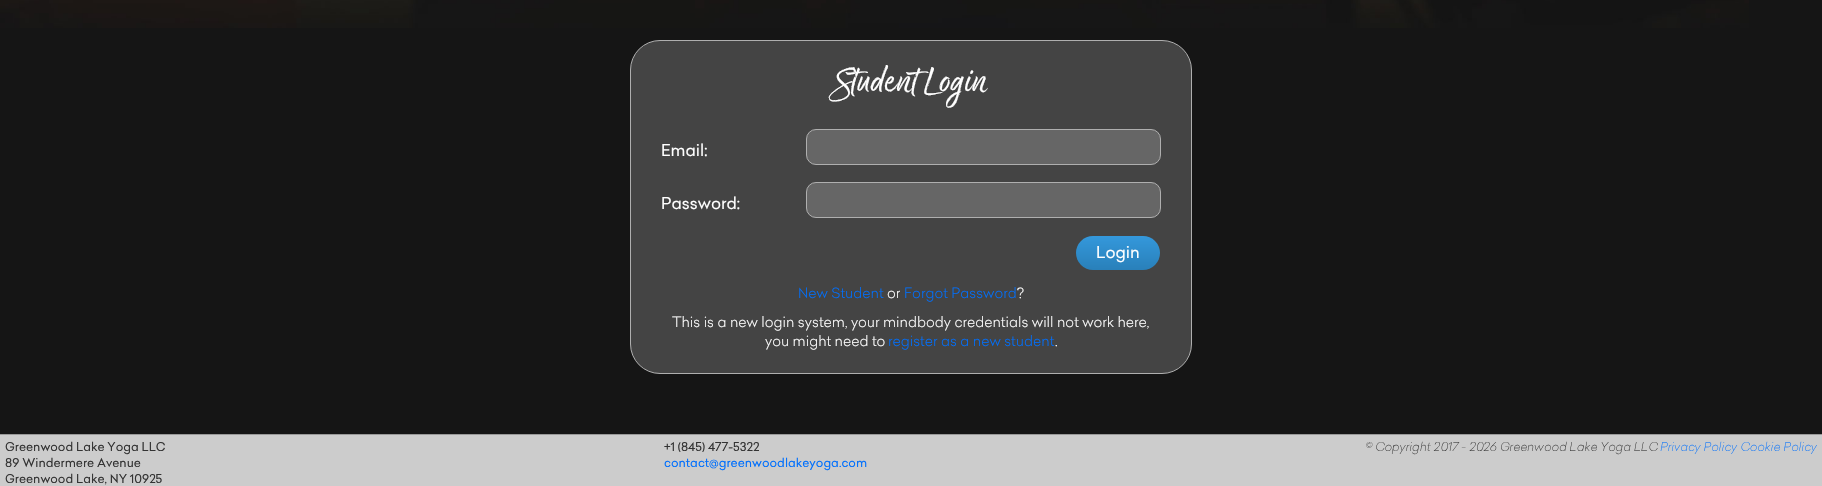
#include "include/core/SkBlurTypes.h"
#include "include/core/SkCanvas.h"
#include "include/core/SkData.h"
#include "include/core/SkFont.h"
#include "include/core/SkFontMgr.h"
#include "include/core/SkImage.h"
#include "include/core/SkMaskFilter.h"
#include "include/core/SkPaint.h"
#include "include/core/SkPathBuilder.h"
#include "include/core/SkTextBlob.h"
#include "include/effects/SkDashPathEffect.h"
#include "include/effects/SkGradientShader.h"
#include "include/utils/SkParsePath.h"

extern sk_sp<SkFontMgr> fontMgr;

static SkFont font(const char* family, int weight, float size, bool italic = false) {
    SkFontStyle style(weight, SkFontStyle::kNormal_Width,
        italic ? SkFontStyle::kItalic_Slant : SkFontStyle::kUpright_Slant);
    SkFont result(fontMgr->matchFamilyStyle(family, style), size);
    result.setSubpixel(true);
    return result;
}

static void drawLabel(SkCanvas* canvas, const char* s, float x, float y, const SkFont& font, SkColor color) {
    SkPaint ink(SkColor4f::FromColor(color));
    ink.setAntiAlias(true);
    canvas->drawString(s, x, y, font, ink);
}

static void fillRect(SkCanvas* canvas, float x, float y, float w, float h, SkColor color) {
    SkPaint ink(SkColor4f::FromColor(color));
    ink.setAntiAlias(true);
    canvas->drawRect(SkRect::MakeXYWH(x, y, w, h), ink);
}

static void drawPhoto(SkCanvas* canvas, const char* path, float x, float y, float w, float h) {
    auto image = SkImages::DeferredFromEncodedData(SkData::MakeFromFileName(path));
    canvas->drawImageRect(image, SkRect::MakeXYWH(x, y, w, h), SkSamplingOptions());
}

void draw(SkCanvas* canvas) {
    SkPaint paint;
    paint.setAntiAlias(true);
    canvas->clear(0xFF151515);
    drawPhoto(canvas, "assets/img1.png", 0, 0, 1749, 28);
    paint.setColor(0xFF444444);
    canvas->drawRoundRect(SkRect::MakeXYWH(630.5f, 40.5f, 561, 333), 29.5f, 29.5f, paint);
    paint.setStroke(true);
    paint.setStrokeWidth(1);
    paint.setColor(0xFFAFAFAF);
    canvas->drawRoundRect(SkRect::MakeXYWH(630.5f, 40.5f, 561, 333), 29.5f, 29.5f, paint);
    SkFont font1 = font("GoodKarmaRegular", 400, 40);
    drawLabel(canvas, "Student Login", 836, 91, font1, 0xFFFFFFFF);
    SkFont font2 = font("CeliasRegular", 400, 16);
    drawLabel(canvas, "Email:", 661, 156, font2, 0xFFFFFFFF);
    paint.setStroke(false);
    paint.setColor(0xFF666666);
    canvas->drawRoundRect(SkRect::MakeXYWH(806.5f, 129.5f, 354, 35), 9.5f, 9.5f, paint);
    paint.setStroke(true);
    paint.setColor(0xFFAFAFAF);
    canvas->drawRoundRect(SkRect::MakeXYWH(806.5f, 129.5f, 354, 35), 9.5f, 9.5f, paint);
    drawLabel(canvas, "Password:", 661, 209, font2, 0xFFFFFFFF);
    paint.setStroke(false);
    paint.setColor(0xFF666666);
    canvas->drawRoundRect(SkRect::MakeXYWH(806.5f, 182.5f, 354, 35), 9.5f, 9.5f, paint);
    paint.setStroke(true);
    paint.setColor(0xFFAFAFAF);
    canvas->drawRoundRect(SkRect::MakeXYWH(806.5f, 182.5f, 354, 35), 9.5f, 9.5f, paint);
    paint.setStroke(false);
    {
        const SkColor colors[] = {0xFF3498DB, 0xFF2980B9};
        const float stops[] = {0, 1};
        const SkPoint ends[] = {{1118, 236}, {1118, 270}};
        paint.setShader(SkGradientShader::MakeLinear(ends, colors, stops, 2, SkTileMode::kClamp));
        paint.setAlpha(255);
    }
    canvas->drawRoundRect(SkRect::MakeXYWH(1076, 236, 84, 34), 17, 17, paint);
    drawLabel(canvas, "Login", 1096, 258, font2, 0xFFFFFFFF);
    SkFont font3 = font("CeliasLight", 300, 14);
    drawLabel(canvas, "New Student", 798, 298, font3, 0xFF006FFD);
    drawLabel(canvas, "or", 887, 298, font3, 0xFFFFFFFF);
    drawLabel(canvas, "Forgot Password", 904, 298, font3, 0xFF006FFD);
    drawLabel(canvas, "?", 1017, 298, font3, 0xFFFFFFFF);
    drawLabel(canvas, "This is a new login system, your mindbody credentials will not work here,", 672, 327, font3, 0xFFFFFFFF);
    drawLabel(canvas, "you might need to", 765, 346, font3, 0xFFFFFFFF);
    drawLabel(canvas, "register as a new student", 888, 346, font3, 0xFF006FFD);
    drawLabel(canvas, ".", 1055, 346, font3, 0xFFFFFFFF);
    fillRect(canvas, 0, 435, 1822, 51, 0xFFCCCCCC);
    fillRect(canvas, 0, 434, 1822, 1, 0xFF999999);
    SkFont font4 = font("CeliasRegular", 400, 12);
    drawLabel(canvas, "Greenwood Lake Yoga LLC", 5, 451, font4, 0xFF333333);
    drawLabel(canvas, "89 Windermere Avenue", 5, 467, font4, 0xFF333333);
    drawLabel(canvas, "Greenwood Lake, NY 10925", 5, 483, font4, 0xFF333333);
    drawLabel(canvas, "+1 (845) 477-5322", 664, 451, font4, 0xFF333333);
    drawLabel(canvas, "contact@greenwoodlakeyoga.com", 664, 467, font4, 0xFF006FFD);
    SkFont font5 = font("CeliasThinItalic", 100, 12);
    drawLabel(canvas, "© Copyright 2017 - 2026 Greenwood Lake Yoga LLC", 1365, 451, font5, 0xFF333333);
    drawLabel(canvas, "Privacy Policy Cookie Policy", 1660, 451, font5, 0xFF006FFD);
}
